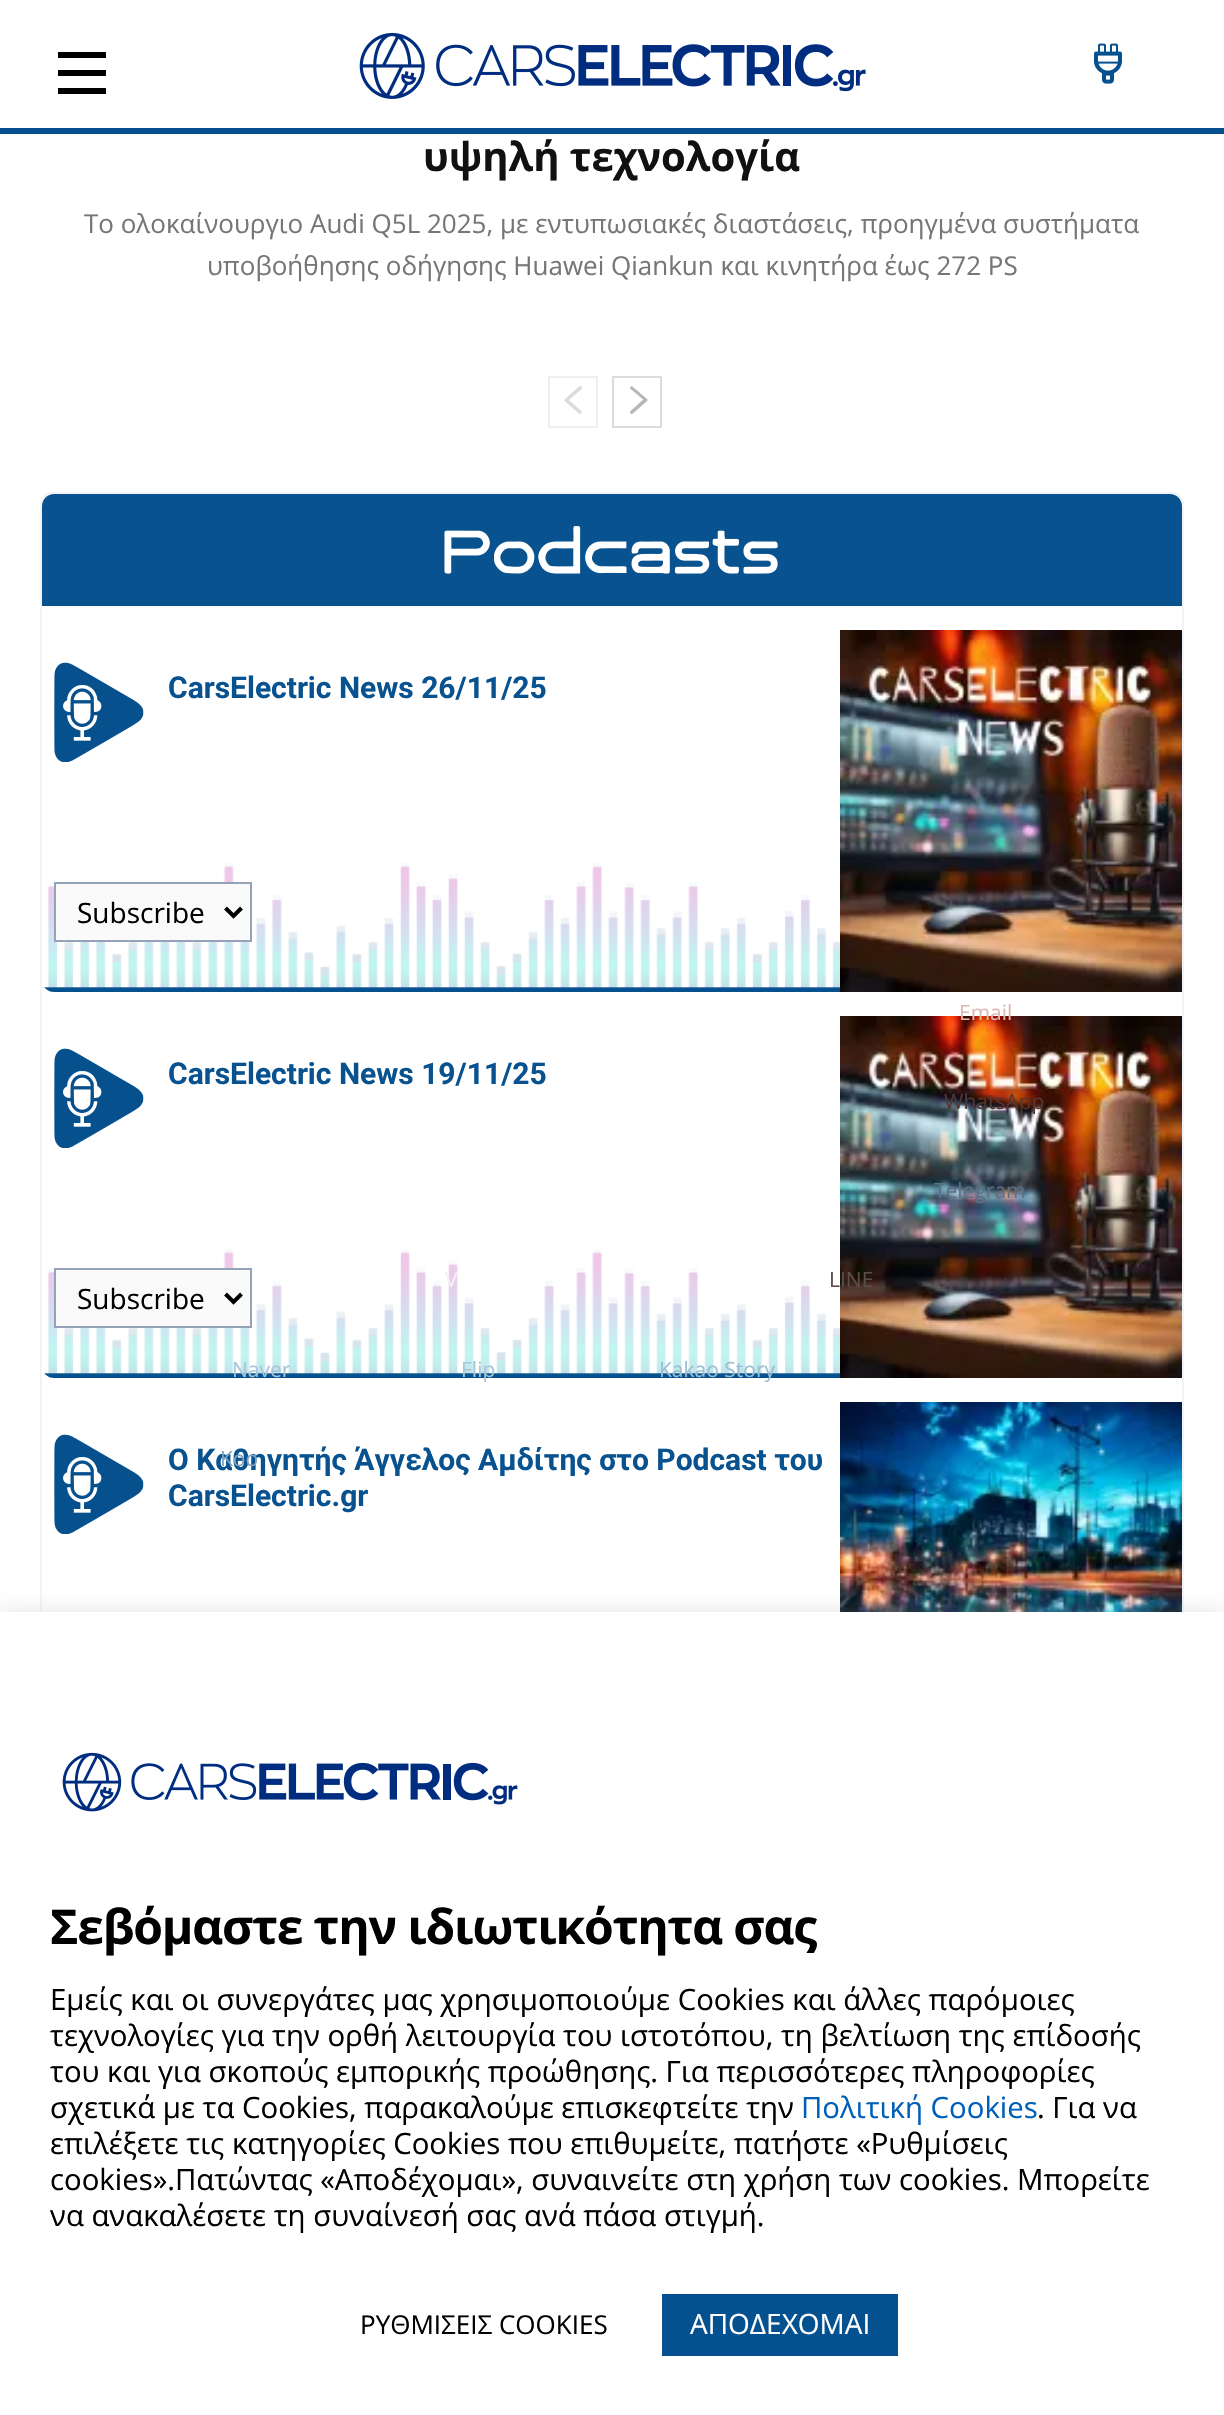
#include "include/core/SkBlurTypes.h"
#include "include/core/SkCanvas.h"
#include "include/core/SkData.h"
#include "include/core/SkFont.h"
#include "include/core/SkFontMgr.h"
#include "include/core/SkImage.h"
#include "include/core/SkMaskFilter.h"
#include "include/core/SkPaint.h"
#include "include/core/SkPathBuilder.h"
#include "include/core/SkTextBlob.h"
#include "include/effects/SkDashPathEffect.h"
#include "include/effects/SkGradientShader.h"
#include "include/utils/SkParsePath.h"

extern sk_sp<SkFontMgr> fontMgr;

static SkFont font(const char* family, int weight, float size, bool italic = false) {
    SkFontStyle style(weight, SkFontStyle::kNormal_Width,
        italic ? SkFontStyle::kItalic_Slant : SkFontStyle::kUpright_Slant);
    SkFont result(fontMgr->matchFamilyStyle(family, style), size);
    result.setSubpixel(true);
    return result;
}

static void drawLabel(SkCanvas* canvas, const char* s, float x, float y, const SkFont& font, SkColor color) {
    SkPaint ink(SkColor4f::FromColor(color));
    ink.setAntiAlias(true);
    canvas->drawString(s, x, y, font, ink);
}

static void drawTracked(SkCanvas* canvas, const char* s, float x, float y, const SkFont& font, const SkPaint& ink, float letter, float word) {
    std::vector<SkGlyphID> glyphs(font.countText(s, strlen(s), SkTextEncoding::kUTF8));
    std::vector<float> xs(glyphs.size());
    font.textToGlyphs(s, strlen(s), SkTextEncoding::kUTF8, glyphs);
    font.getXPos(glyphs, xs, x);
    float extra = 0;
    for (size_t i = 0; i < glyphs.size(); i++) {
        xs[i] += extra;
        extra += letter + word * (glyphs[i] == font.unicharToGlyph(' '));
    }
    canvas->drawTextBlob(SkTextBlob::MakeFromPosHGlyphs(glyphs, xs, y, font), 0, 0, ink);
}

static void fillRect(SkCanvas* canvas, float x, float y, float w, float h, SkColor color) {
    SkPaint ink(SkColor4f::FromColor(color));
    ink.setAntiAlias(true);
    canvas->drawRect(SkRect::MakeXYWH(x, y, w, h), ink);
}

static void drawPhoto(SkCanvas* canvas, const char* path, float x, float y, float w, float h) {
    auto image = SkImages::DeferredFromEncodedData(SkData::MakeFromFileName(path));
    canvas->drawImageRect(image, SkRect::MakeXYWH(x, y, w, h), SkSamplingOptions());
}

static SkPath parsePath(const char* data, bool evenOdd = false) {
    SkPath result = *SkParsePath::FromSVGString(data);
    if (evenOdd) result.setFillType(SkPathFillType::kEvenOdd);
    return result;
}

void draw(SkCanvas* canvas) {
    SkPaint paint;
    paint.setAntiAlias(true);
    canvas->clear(0xFFFFFFFF);
    paint.setColor(0xFF000000);
    canvas->drawPath(parsePath("M58 52H106V58H58ZM58 70H106V76H58ZM58 88H106V94H58Z"), paint);
    drawPhoto(canvas, "assets/img1.png", 359, 32, 507, 67);
    drawPhoto(canvas, "assets/img2.png", 1094, 43, 28, 41);
    fillRect(canvas, 0, 128, 1224, 6, 0xFF05508E);
    SkFont font1 = font("Open Sans", 700, 40);
    drawLabel(canvas, "υψηλή τεχνολογία", 423, 171, font1, 0xFF111111);
    SkFont font2 = font("Open Sans", 400, 26);
    drawLabel(canvas, "Το ολοκαίνουργιο Audi Q5L 2025, με εντυπωσιακές διαστάσεις, προηγμένα συστήματα", 84, 233, font2, 0xFF767676);
    drawLabel(canvas, "υποβοήθησης οδήγησης Huawei Qiankun και κινητήρα έως 272 PS", 207, 275, font2, 0xFF767676);
    paint.setStroke(true);
    paint.setStrokeWidth(2);
    paint.setColor(0xFFEEEEEE);
    canvas->drawRect(SkRect::MakeXYWH(549, 377, 48, 50), paint);
    drawPhoto(canvas, "assets/img3.png", 564, 386, 18, 28);
    paint.setColor(0xFFDCDCDC);
    canvas->drawRect(SkRect::MakeXYWH(613, 377, 48, 50), paint);
    drawPhoto(canvas, "assets/img4.png", 630, 386, 18, 28);
    paint.setColor(0xFFF1F5F9);
    canvas->drawRoundRect(SkRect::MakeXYWH(41, 493, 1142, 1272), 11, 11, paint);
    paint.setStroke(false);
    paint.setColor(0xFF08528F);
    canvas->drawPath(parsePath("M54 494H1170C1176.5 494 1182 499.5 1182 506V606H42V506C42 499.5 47.5 494 54 494Z"), paint);
    drawPhoto(canvas, "assets/img5.png", 444, 526, 334, 48);
    drawPhoto(canvas, "assets/img6.png", 44, 863, 796, 129);
    drawPhoto(canvas, "assets/img7.png", 54, 662, 90, 100);
    SkFont font3 = font("Roboto", 700, 30);
    drawLabel(canvas, "CarsElectric News 26/11/25", 168, 698, font3, 0xFF08528F);
    paint.setColor(0xFFFAFAFA);
    canvas->drawRect(SkRect::MakeXYWH(55, 883, 196, 58), paint);
    paint.setStroke(true);
    paint.setColor(0xFF94A3B8);
    canvas->drawRect(SkRect::MakeXYWH(55, 883, 196, 58), paint);
    paint.setStrokeWidth(4);
    paint.setColor(0xFF000000);
    canvas->drawPath(parsePath("M225.5 908L233.5 916L241.5 908"), paint);
    SkFont font4 = font("Open Sans", 400, 28);
    drawLabel(canvas, "Subscribe", 77, 923, font4, 0xFF000000);
    drawPhoto(canvas, "assets/img8.png", 840, 630, 342, 362);
    drawPhoto(canvas, "assets/img6.png", 44, 1249, 796, 129);
    drawPhoto(canvas, "assets/img7.png", 54, 1048, 90, 100);
    drawLabel(canvas, "CarsElectric News 19/11/25", 168, 1084, font3, 0xFF08528F);
    paint.setStroke(false);
    paint.setColor(0xFFFAFAFA);
    canvas->drawRect(SkRect::MakeXYWH(55, 1269, 196, 58), paint);
    paint.setStroke(true);
    paint.setStrokeWidth(2);
    paint.setColor(0xFF94A3B8);
    canvas->drawRect(SkRect::MakeXYWH(55, 1269, 196, 58), paint);
    paint.setStrokeWidth(4);
    paint.setColor(0xFF000000);
    canvas->drawPath(parsePath("M225.5 1294L233.5 1302L241.5 1294"), paint);
    drawLabel(canvas, "Subscribe", 77, 1309, font4, 0xFF000000);
    drawPhoto(canvas, "assets/img8.png", 840, 1016, 342, 362);
    drawPhoto(canvas, "assets/img7.png", 54, 1434, 90, 100);
    drawLabel(canvas, "Ο Καθηγητής Άγγελος Αμδίτης στο Podcast του", 168, 1470, font3, 0xFF08528F);
    drawLabel(canvas, "CarsElectric.gr", 168, 1506, font3, 0xFF08528F);
    drawPhoto(canvas, "assets/img9.png", 840, 1402, 342, 210);
    SkFont font5 = font("Open Sans", 400, 21);
    drawLabel(canvas, "Email", 959, 1020, font5, 0xFFDEB9B3);
    drawLabel(canvas, "WhatsApp", 944, 1109, font5, 0xFF533631);
    drawLabel(canvas, "Telegram", 934, 1198, font5, 0xFF5E7081);
    drawLabel(canvas, "V", 445, 1287, font5, 0xFFF7EFF8);
    drawLabel(canvas, "LINE", 829, 1287, font5, 0xFF5A4C46);
    drawLabel(canvas, "Naver", 232, 1377, font5, 0xFFA7C7D9);
    drawLabel(canvas, "Flip", 461, 1377, font5, 0xFFA7C7D9);
    drawLabel(canvas, "Kakao Story", 659, 1377, font5, 0xFF9ABFD4);
    drawLabel(canvas, "Koo", 220, 1466, font5, 0xFF7CA3C3);
    paint.setStroke(false);
    paint.setColor(0x4DACABAB);
    paint.setMaskFilter(SkMaskFilter::MakeBlur(kNormal_SkBlurStyle, 10));
    canvas->drawRect(SkRect::MakeXYWH(0, 1610, 1224, 804), paint);
    paint.setMaskFilter(nullptr);
    fillRect(canvas, 0, 1612, 1224, 803, 0xFFFFFFFF);
    drawPhoto(canvas, "assets/img10.png", 62, 1752, 456, 60);
    SkFont font6 = font("Open Sans", 700, 48);
    paint.setColor(0xFF000000);
    drawTracked(canvas, "Σεβόμαστε την ιδιωτικότητα σας", 50, 1944, font6, paint, -1.2f, 0);
    SkFont font7 = font("Open Sans", 400, 29.35f);
    drawLabel(canvas, "Εμείς και οι συνεργάτες μας χρησιμοποιούμε Cookies και άλλες παρόμοιες", 50, 2010, font7, 0xFF000000);
    drawLabel(canvas, "τεχνολογίες για την ορθή λειτουργία του ιστοτόπου, τη βελτίωση της επίδοσής", 50, 2046, font7, 0xFF000000);
    drawLabel(canvas, "του και για σκοπούς εμπορικής προώθησης. Για περισσότερες πληροφορίες", 50, 2082, font7, 0xFF000000);
    drawLabel(canvas, "σχετικά με τα Cookies, παρακαλούμε επισκεφτείτε την", 50, 2118, font7, 0xFF000000);
    drawLabel(canvas, "Πολιτική Cookies", 801, 2118, font7, 0xFF005FB9);
    drawLabel(canvas, ". Για να", 1037, 2118, font7, 0xFF000000);
    drawLabel(canvas, "επιλέξετε τις κατηγορίες Cookies που επιθυμείτε, πατήστε «Ρυθμίσεις", 50, 2154, font7, 0xFF000000);
    drawLabel(canvas, "cookies».Πατώντας «Αποδέχομαι», συναινείτε στη χρήση των cookies. Μπορείτε", 50, 2190, font7, 0xFF000000);
    drawLabel(canvas, "να ανακαλέσετε τη συναίνεσή σας ανά πάσα στιγμή.", 50, 2226, font7, 0xFF000000);
    drawLabel(canvas, "ΡΥΘΜΙΣΕΙΣ COOKIES", 360, 2334, font2, 0xFF000000);
    fillRect(canvas, 662, 2294, 236, 62, 0xFF05508E);
    drawLabel(canvas, "ΑΠΟΔΕΧΟΜΑΙ", 690, 2334, font4, 0xFFFFFFFF);
}
